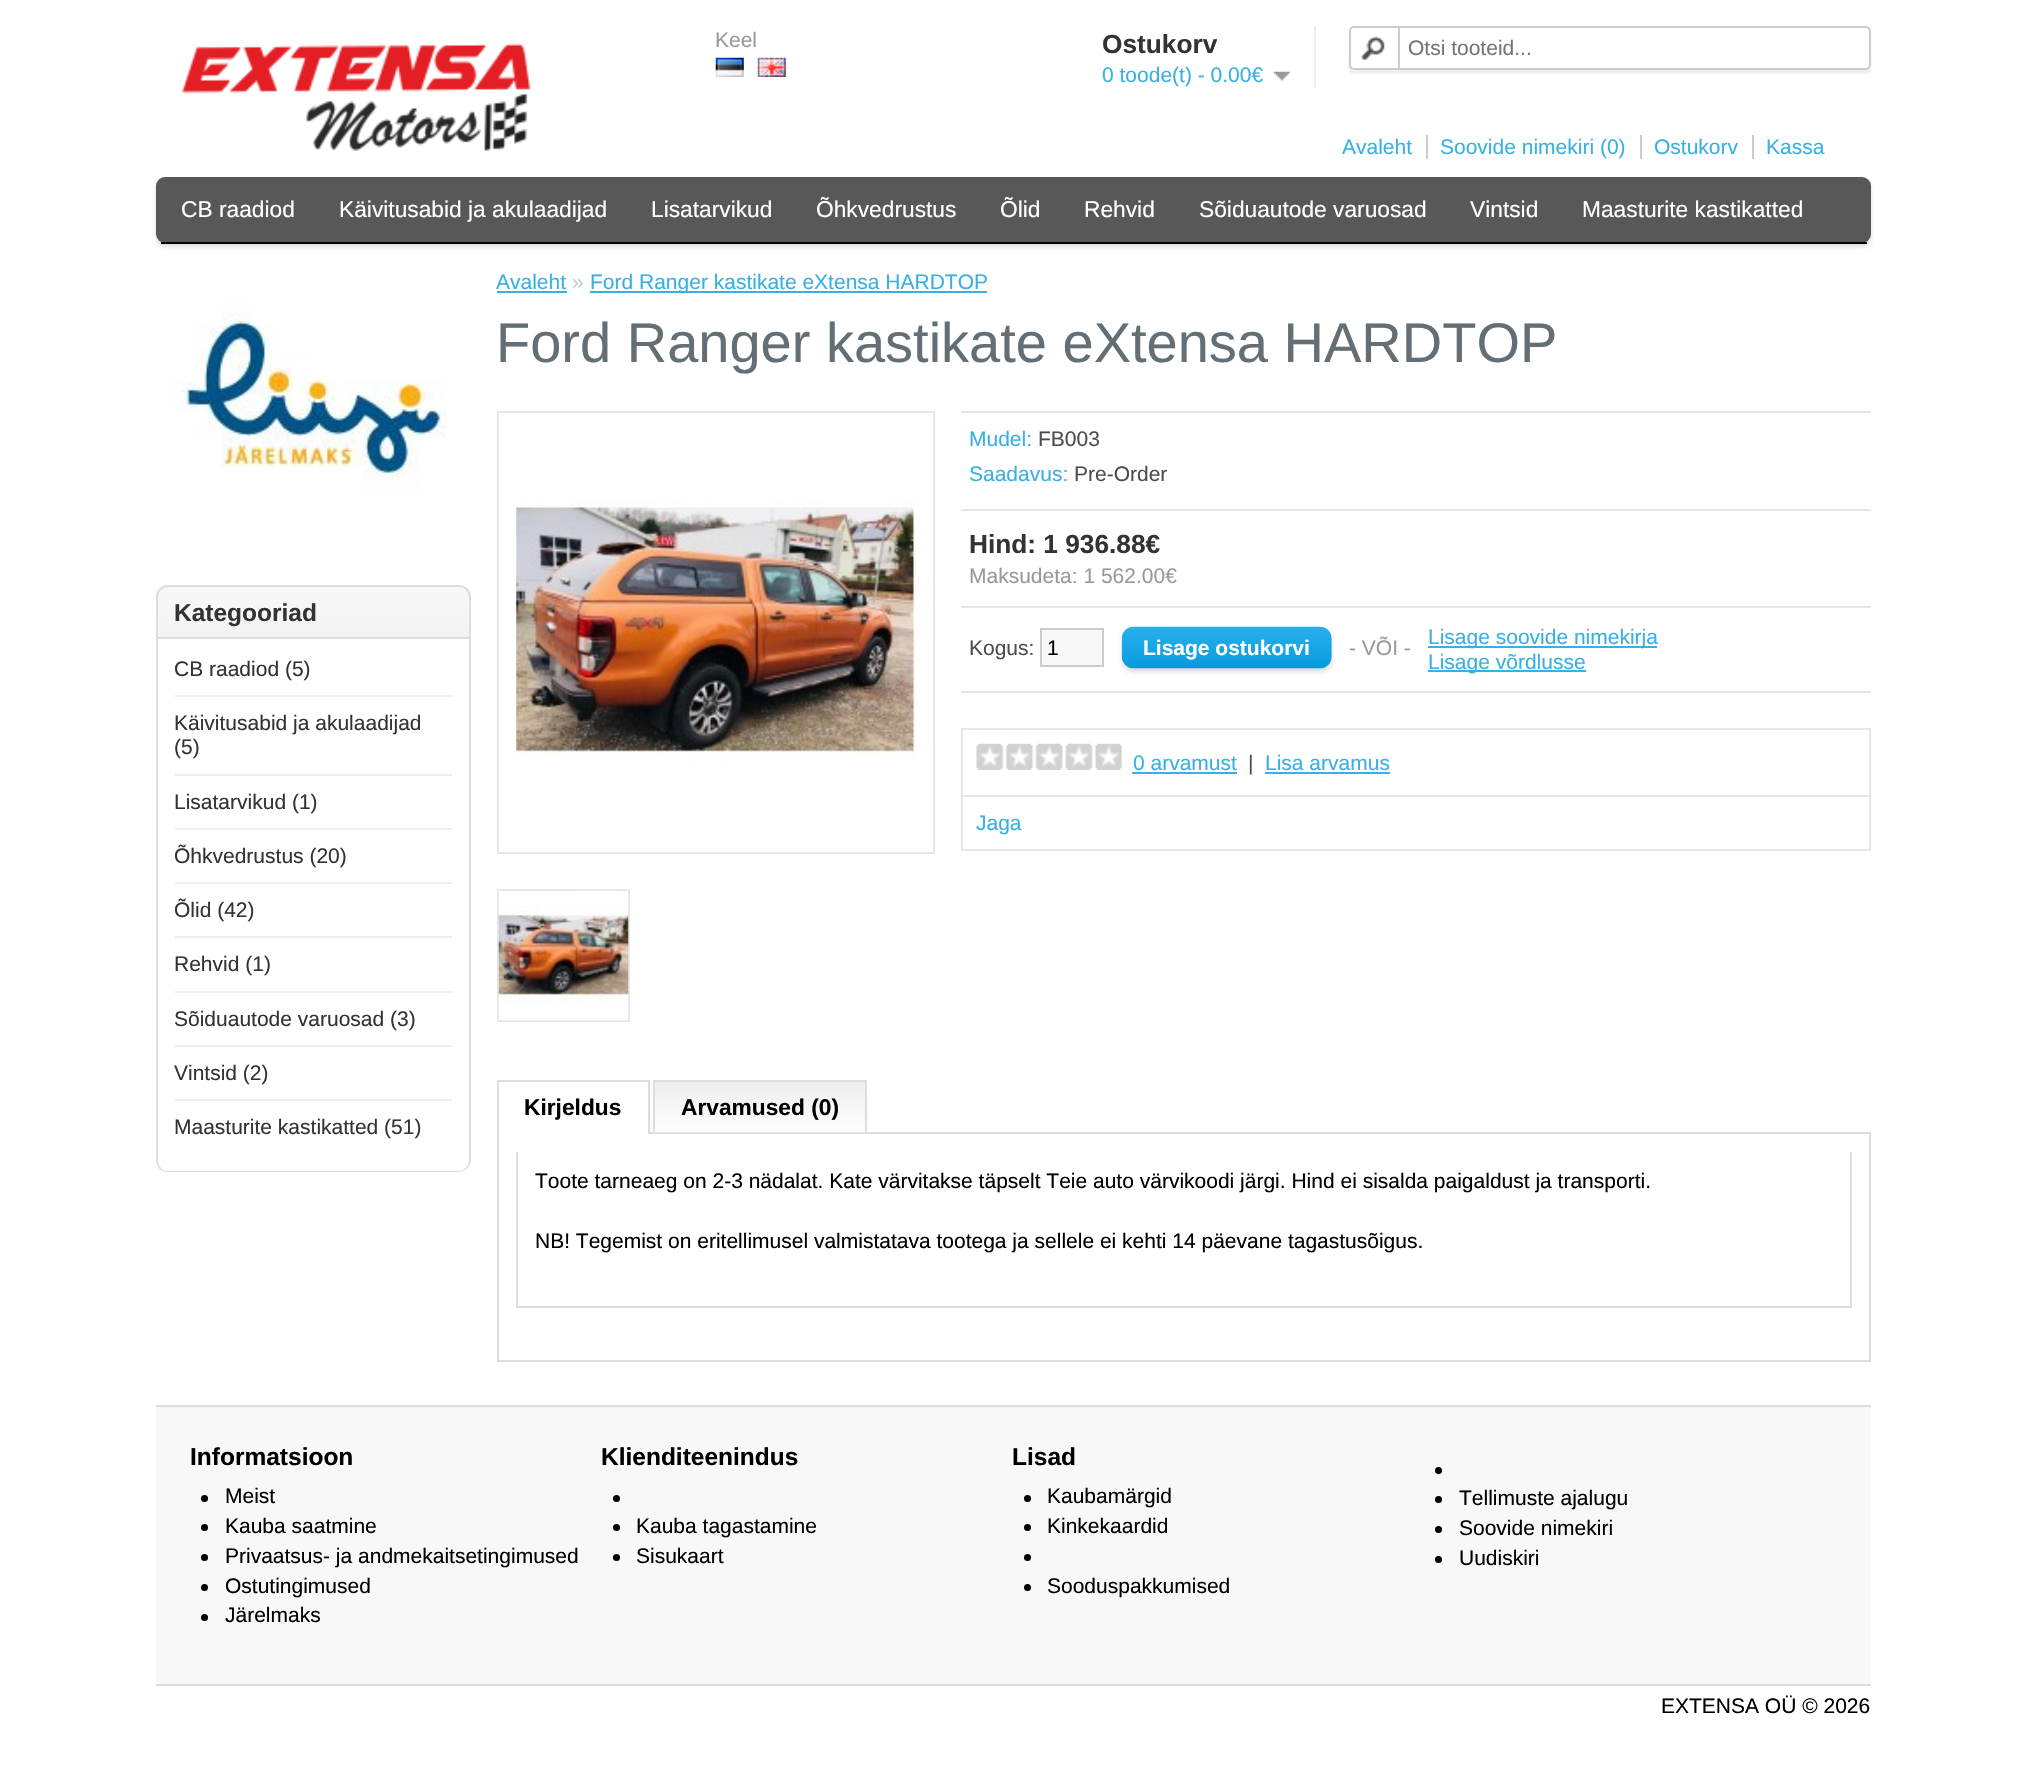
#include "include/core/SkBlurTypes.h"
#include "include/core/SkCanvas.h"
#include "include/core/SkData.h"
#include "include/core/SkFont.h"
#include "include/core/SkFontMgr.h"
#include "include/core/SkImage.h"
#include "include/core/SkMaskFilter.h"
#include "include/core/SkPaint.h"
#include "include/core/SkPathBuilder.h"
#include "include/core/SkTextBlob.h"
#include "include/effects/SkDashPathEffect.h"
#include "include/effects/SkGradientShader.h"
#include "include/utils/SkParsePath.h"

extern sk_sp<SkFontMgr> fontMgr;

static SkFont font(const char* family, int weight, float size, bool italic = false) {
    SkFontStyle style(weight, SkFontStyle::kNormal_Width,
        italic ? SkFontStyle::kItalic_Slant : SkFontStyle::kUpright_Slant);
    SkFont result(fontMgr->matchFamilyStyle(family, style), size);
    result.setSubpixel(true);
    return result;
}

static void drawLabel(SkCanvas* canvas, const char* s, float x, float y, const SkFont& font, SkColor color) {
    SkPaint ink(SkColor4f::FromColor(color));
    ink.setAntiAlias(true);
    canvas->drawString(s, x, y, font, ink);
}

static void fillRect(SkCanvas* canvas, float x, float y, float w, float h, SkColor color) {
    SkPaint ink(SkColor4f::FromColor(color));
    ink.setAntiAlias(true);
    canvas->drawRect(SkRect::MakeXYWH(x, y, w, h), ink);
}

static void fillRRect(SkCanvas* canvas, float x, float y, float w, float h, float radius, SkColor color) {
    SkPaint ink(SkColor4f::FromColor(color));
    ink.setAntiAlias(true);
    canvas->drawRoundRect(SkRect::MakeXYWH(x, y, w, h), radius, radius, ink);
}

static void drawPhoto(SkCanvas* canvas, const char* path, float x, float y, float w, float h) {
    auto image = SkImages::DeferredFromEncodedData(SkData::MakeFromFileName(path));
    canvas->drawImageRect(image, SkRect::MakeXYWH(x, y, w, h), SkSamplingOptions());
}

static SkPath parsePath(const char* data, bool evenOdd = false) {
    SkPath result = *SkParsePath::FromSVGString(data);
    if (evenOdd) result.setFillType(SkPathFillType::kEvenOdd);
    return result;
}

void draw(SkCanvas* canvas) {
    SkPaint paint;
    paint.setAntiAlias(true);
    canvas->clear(0xFFFFFFFF);
    drawPhoto(canvas, "assets/img1.png", 182, 43, 349, 108);
    SkFont font1 = font("Liberation Sans", 400, 21);
    drawLabel(canvas, "Keel", 715, 47, font1, 0xFF999999);
    drawPhoto(canvas, "assets/img2.png", 715, 57, 29, 20);
    drawPhoto(canvas, "assets/img3.png", 757, 57, 29, 20);
    fillRect(canvas, 1314, 26, 2, 62, 0xFFEEEEEE);
    SkFont font2 = font("Liberation Sans", 700, 26.25f);
    drawLabel(canvas, "Ostukorv", 1102, 53, font2, 0xFF333333);
    drawLabel(canvas, "0 toode(t) - 0.00€", 1102, 82, font1, 0xFF38B0E3);
    drawPhoto(canvas, "assets/img4.png", 1274, 71, 16, 10);
    paint.setColor(0xFFF0F0F0);
    canvas->drawPath(parsePath("M1349 33V58C1349 62 1347 74 1354 74H1866C1873 74 1871 62 1871 58V33V65C1871 68 1868 70 1866 70H1354C1352 70 1349 68 1349 65Z"), paint);
    paint.setColor(0xFFFFFFFF);
    canvas->drawRoundRect(SkRect::MakeXYWH(1350, 27, 520, 42), 4, 4, paint);
    paint.setStroke(true);
    paint.setStrokeWidth(2);
    paint.setColor(0xFFCCCCCC);
    canvas->drawRoundRect(SkRect::MakeXYWH(1350, 27, 520, 42), 4, 4, paint);
    drawPhoto(canvas, "assets/img5.png", 1361, 36, 24, 24);
    fillRect(canvas, 1398, 26, 2, 42, 0xFFCCCCCC);
    drawLabel(canvas, "Otsi tooteid...", 1408, 55, font1, 0xFF757575);
    drawLabel(canvas, "Avaleht", 1342, 154, font1, 0xFF38B0E3);
    fillRect(canvas, 1426, 135, 2, 24, 0xFFCCCCCC);
    drawLabel(canvas, "Soovide nimekiri (0)", 1440, 154, font1, 0xFF38B0E3);
    fillRect(canvas, 1640, 135, 2, 24, 0xFFCCCCCC);
    drawLabel(canvas, "Ostukorv", 1654, 154, font1, 0xFF38B0E3);
    fillRect(canvas, 1752, 135, 2, 24, 0xFFCCCCCC);
    drawLabel(canvas, "Kassa", 1766, 154, font1, 0xFF38B0E3);
    paint.setStroke(false);
    paint.setColor(0xFFDDDDDD);
    paint.setMaskFilter(SkMaskFilter::MakeBlur(kNormal_SkBlurStyle, 2));
    canvas->drawRoundRect(SkRect::MakeXYWH(156, 180, 1715, 67), 9, 9, paint);
    paint.setMaskFilter(nullptr);
    fillRRect(canvas, 156, 177, 1715, 66, 9, 0xFF585858);
    fillRect(canvas, 161, 242, 1706, 2, 0xFF000000);
    SkFont font3 = font("Liberation Sans", 400, 22.75f);
    drawLabel(canvas, "CB raadiod", 181, 217, font3, 0xFFFFFFFF);
    drawLabel(canvas, "Käivitusabid ja akulaadijad", 339, 217, font3, 0xFFFFFFFF);
    drawLabel(canvas, "Lisatarvikud", 651, 217, font3, 0xFFFFFFFF);
    drawLabel(canvas, "Õhkvedrustus", 816, 217, font3, 0xFFFFFFFF);
    drawLabel(canvas, "Õlid", 1000, 217, font3, 0xFFFFFFFF);
    drawLabel(canvas, "Rehvid", 1084, 217, font3, 0xFFFFFFFF);
    drawLabel(canvas, "Sõiduautode varuosad", 1199, 217, font3, 0xFFFFFFFF);
    drawLabel(canvas, "Vintsid", 1470, 217, font3, 0xFFFFFFFF);
    drawLabel(canvas, "Maasturite kastikatted", 1582, 217, font3, 0xFFFFFFFF);
    drawPhoto(canvas, "assets/img6.png", 166, 298, 281, 196);
    drawPhoto(canvas, "assets/img7.png", 156, 586, 315, 51);
    paint.setStroke(true);
    paint.setColor(0xFFDBDEE1);
    canvas->drawPath(parsePath("M168 586H459C465 586 470 591 470 597V638H157V597C157 591 162 586 168 586Z"), paint);
    SkFont font4 = font("Liberation Sans", 700, 24.5f);
    drawLabel(canvas, "Kategooriad", 174, 621, font4, 0xFF333333);
    paint.setStroke(false);
    canvas->drawPath(parsePath("M156 639H471V1160C471 1167 465 1172 458 1172H168C161 1172 156 1167 156 1160ZM158 639H469V1160C469 1166 464 1171 458 1171H168C162 1171 158 1166 158 1160Z", true), paint);
    drawLabel(canvas, "CB raadiod (5)", 174, 676, font1, 0xFF333333);
    fillRect(canvas, 175, 695, 277, 2, 0xFFEEEEEE);
    drawLabel(canvas, "Käivitusabid ja akulaadijad", 174, 730, font1, 0xFF333333);
    drawLabel(canvas, "(5)", 174, 754, font1, 0xFF333333);
    fillRect(canvas, 175, 774, 277, 2, 0xFFEEEEEE);
    drawLabel(canvas, "Lisatarvikud (1)", 174, 809, font1, 0xFF333333);
    fillRect(canvas, 175, 828, 277, 2, 0xFFEEEEEE);
    drawLabel(canvas, "Õhkvedrustus (20)", 174, 863, font1, 0xFF333333);
    fillRect(canvas, 175, 882, 277, 2, 0xFFEEEEEE);
    drawLabel(canvas, "Õlid (42)", 174, 917, font1, 0xFF333333);
    fillRect(canvas, 175, 936, 277, 2, 0xFFEEEEEE);
    drawLabel(canvas, "Rehvid (1)", 174, 971, font1, 0xFF333333);
    fillRect(canvas, 175, 991, 277, 2, 0xFFEEEEEE);
    drawLabel(canvas, "Sõiduautode varuosad (3)", 174, 1026, font1, 0xFF333333);
    fillRect(canvas, 175, 1045, 277, 2, 0xFFEEEEEE);
    drawLabel(canvas, "Vintsid (2)", 174, 1080, font1, 0xFF333333);
    fillRect(canvas, 175, 1099, 277, 2, 0xFFEEEEEE);
    drawLabel(canvas, "Maasturite kastikatted (51)", 174, 1134, font1, 0xFF333333);
    drawLabel(canvas, "Avaleht", 496, 289, font1, 0xFF38B0E3);
    fillRect(canvas, 497, 291, 70, 2, 0xFF38B0E3);
    drawLabel(canvas, "»", 572, 289, font1, 0xFFCCCCCC);
    fillRect(canvas, 590, 291, 397, 2, 0xFF38B0E3);
    drawLabel(canvas, "Ford Ranger kastikate eXtensa HARDTOP", 590, 289, font1, 0xFF38B0E3);
    SkFont font5 = font("Liberation Sans", 400, 56);
    drawLabel(canvas, "Ford Ranger kastikate eXtensa HARDTOP", 496, 362, font5, 0xFF636E75);
    paint.setStroke(true);
    paint.setColor(0xFFE7E7E7);
    canvas->drawRect(SkRect::MakeXYWH(498, 412, 436, 441), paint);
    drawPhoto(canvas, "assets/img8.png", 516, 501, 400, 261);
    canvas->drawRect(SkRect::MakeXYWH(498, 890, 131, 131), paint);
    drawPhoto(canvas, "assets/img9.png", 498, 890, 131, 131);
    fillRect(canvas, 961, 411, 910, 2, 0xFFE7E7E7);
    fillRect(canvas, 961, 509, 910, 2, 0xFFE7E7E7);
    drawLabel(canvas, "Mudel:", 969, 446, font1, 0xFF38B0E3);
    drawLabel(canvas, "FB003", 1038, 446, font1, 0xFF4D4D4D);
    drawLabel(canvas, "Saadavus:", 969, 481, font1, 0xFF38B0E3);
    drawLabel(canvas, "Pre-Order", 1074, 481, font1, 0xFF4D4D4D);
    fillRect(canvas, 961, 606, 910, 2, 0xFFE7E7E7);
    drawLabel(canvas, "Hind: 1 936.88€", 969, 553, font2, 0xFF333333);
    drawLabel(canvas, "Maksudeta: 1 562.00€", 969, 583, font1, 0xFF999999);
    fillRect(canvas, 961, 691, 910, 2, 0xFFE7E7E7);
    drawLabel(canvas, "Kogus:", 969, 655, font1, 0xFF4D4D4D);
    paint.setStroke(false);
    paint.setColor(0xFFF8F8F8);
    canvas->drawRect(SkRect::MakeXYWH(1041, 629, 62, 37), paint);
    paint.setStroke(true);
    paint.setColor(0xFFCCCCCC);
    canvas->drawRect(SkRect::MakeXYWH(1041, 629, 62, 37), paint);
    drawLabel(canvas, "1", 1047, 655, font1, 0xFF000000);
    paint.setStroke(false);
    paint.setColor(0xFFDDDDDD);
    paint.setMaskFilter(SkMaskFilter::MakeBlur(kNormal_SkBlurStyle, 2));
    canvas->drawRoundRect(SkRect::MakeXYWH(1122, 630, 210, 42), 12, 12, paint);
    paint.setMaskFilter(nullptr);
    drawPhoto(canvas, "assets/img10.png", 1121, 626, 211, 43);
    SkFont font6 = font("Liberation Sans", 700, 21);
    drawLabel(canvas, "Lisage ostukorvi", 1143, 655, font6, 0xFFFFFFFF);
    drawLabel(canvas, "- VÕI -", 1349, 655, font1, 0xFF999999);
    fillRect(canvas, 1428, 646, 229, 2, 0xFF38B0E3);
    drawLabel(canvas, "Lisage soovide nimekirja", 1428, 644, font1, 0xFF38B0E3);
    fillRect(canvas, 1428, 670, 158, 2, 0xFF38B0E3);
    drawLabel(canvas, "Lisage võrdlusse", 1428, 669, font1, 0xFF38B0E3);
    fillRect(canvas, 961, 728, 910, 2, 0xFFE7E7E7);
    fillRect(canvas, 1869, 728, 2, 123, 0xFFE7E7E7);
    fillRect(canvas, 961, 728, 2, 123, 0xFFE7E7E7);
    fillRect(canvas, 963, 795, 906, 2, 0xFFE7E7E7);
    drawPhoto(canvas, "assets/img11.png", 976, 743, 146, 27);
    drawLabel(canvas, "0 arvamust", 1133, 770, font1, 0xFF38B0E3);
    fillRect(canvas, 1132, 772, 105, 2, 0xFF38B0E3);
    drawLabel(canvas, "|", 1248, 770, font1, 0xFF4D4D4D);
    drawLabel(canvas, "Lisa arvamus", 1265, 770, font1, 0xFF38B0E3);
    fillRect(canvas, 1265, 772, 125, 2, 0xFF38B0E3);
    fillRect(canvas, 963, 849, 906, 2, 0xFFE7E7E7);
    drawLabel(canvas, "Jaga", 976, 830, font1, 0xFF38B0E3);
    fillRect(canvas, 650, 1132, 1221, 2, 0xFFDDDDDD);
    fillRect(canvas, 497, 1080, 152, 2, 0xFFDDDDDD);
    fillRect(canvas, 648, 1080, 2, 54, 0xFFDDDDDD);
    fillRect(canvas, 497, 1080, 2, 54, 0xFFDDDDDD);
    SkFont font7 = font("Liberation Sans", 700, 22.75f);
    drawLabel(canvas, "Kirjeldus", 524, 1115, font7, 0xFF000000);
    drawPhoto(canvas, "assets/img12.png", 652, 1081, 215, 52);
    fillRect(canvas, 653, 1080, 213, 2, 0xFFDDDDDD);
    fillRect(canvas, 865, 1080, 2, 52, 0xFFDDDDDD);
    fillRect(canvas, 653, 1080, 2, 52, 0xFFDDDDDD);
    drawLabel(canvas, "Arvamused (0)", 681, 1115, font7, 0xFF000000);
    fillRect(canvas, 1869, 1134, 2, 228, 0xFFDDDDDD);
    fillRect(canvas, 497, 1360, 1374, 2, 0xFFDDDDDD);
    fillRect(canvas, 497, 1134, 2, 228, 0xFFDDDDDD);
    fillRect(canvas, 1850, 1152, 2, 155, 0xFFDDDDDD);
    fillRect(canvas, 516, 1306, 1336, 2, 0xFFDDDDDD);
    fillRect(canvas, 516, 1152, 2, 155, 0xFFDDDDDD);
    drawLabel(canvas, "Toote tarneaeg on 2-3 nädalat. Kate värvitakse täpselt Teie auto värvikoodi järgi. Hind ei sisalda paigaldust ja transporti.", 535, 1188, font1, 0xFF000000);
    drawLabel(canvas, "NB! Tegemist on eritellimusel valmistatava tootega ja sellele ei kehti 14 päevane tagastusõigus.", 535, 1248, font1, 0xFF000000);
    fillRect(canvas, 156, 1407, 1715, 277, 0xFFF8F8F8);
    fillRect(canvas, 156, 1405, 1715, 2, 0xFFDBDEE1);
    fillRect(canvas, 156, 1684, 1715, 2, 0xFFDBDEE1);
    drawLabel(canvas, "Informatsioon", 190, 1465, font4, 0xFF000000);
    paint.setColor(0xFF000000);
    canvas->drawCircle(204.5f, 1498.5f, 3.5f, paint);
    drawLabel(canvas, "Meist", 225, 1503, font1, 0xFF000000);
    canvas->drawCircle(204.5f, 1527.5f, 3.5f, paint);
    drawLabel(canvas, "Kauba saatmine", 225, 1533, font1, 0xFF000000);
    canvas->drawCircle(204.5f, 1557.5f, 3.5f, paint);
    drawLabel(canvas, "Privaatsus- ja andmekaitsetingimused", 225, 1563, font1, 0xFF000000);
    canvas->drawCircle(204.5f, 1587.5f, 3.5f, paint);
    drawLabel(canvas, "Ostutingimused", 225, 1593, font1, 0xFF000000);
    canvas->drawCircle(204.5f, 1617.5f, 3.5f, paint);
    drawLabel(canvas, "Järelmaks", 225, 1622, font1, 0xFF000000);
    drawLabel(canvas, "Klienditeenindus", 601, 1465, font4, 0xFF000000);
    canvas->drawCircle(616.5f, 1498.5f, 3.5f, paint);
    canvas->drawCircle(616.5f, 1527.5f, 3.5f, paint);
    drawLabel(canvas, "Kauba tagastamine", 636, 1533, font1, 0xFF000000);
    canvas->drawCircle(616.5f, 1557.5f, 3.5f, paint);
    drawLabel(canvas, "Sisukaart", 636, 1563, font1, 0xFF000000);
    drawLabel(canvas, "Lisad", 1012, 1465, font4, 0xFF000000);
    canvas->drawCircle(1027.5f, 1498.5f, 3.5f, paint);
    drawLabel(canvas, "Kaubamärgid", 1047, 1503, font1, 0xFF000000);
    canvas->drawCircle(1027.5f, 1527.5f, 3.5f, paint);
    drawLabel(canvas, "Kinkekaardid", 1047, 1533, font1, 0xFF000000);
    canvas->drawCircle(1027.5f, 1557.5f, 3.5f, paint);
    canvas->drawCircle(1027.5f, 1587.5f, 3.5f, paint);
    drawLabel(canvas, "Sooduspakkumised", 1047, 1593, font1, 0xFF000000);
    canvas->drawCircle(1438.5f, 1470.5f, 3.5f, paint);
    canvas->drawCircle(1438.5f, 1499.5f, 3.5f, paint);
    drawLabel(canvas, "Tellimuste ajalugu", 1459, 1505, font1, 0xFF000000);
    canvas->drawCircle(1438.5f, 1529.5f, 3.5f, paint);
    drawLabel(canvas, "Soovide nimekiri", 1459, 1535, font1, 0xFF000000);
    canvas->drawCircle(1438.5f, 1559.5f, 3.5f, paint);
    drawLabel(canvas, "Uudiskiri", 1459, 1565, font1, 0xFF000000);
    drawLabel(canvas, "EXTENSA OÜ © 2026", 1661, 1713, font1, 0xFF000000);
}
